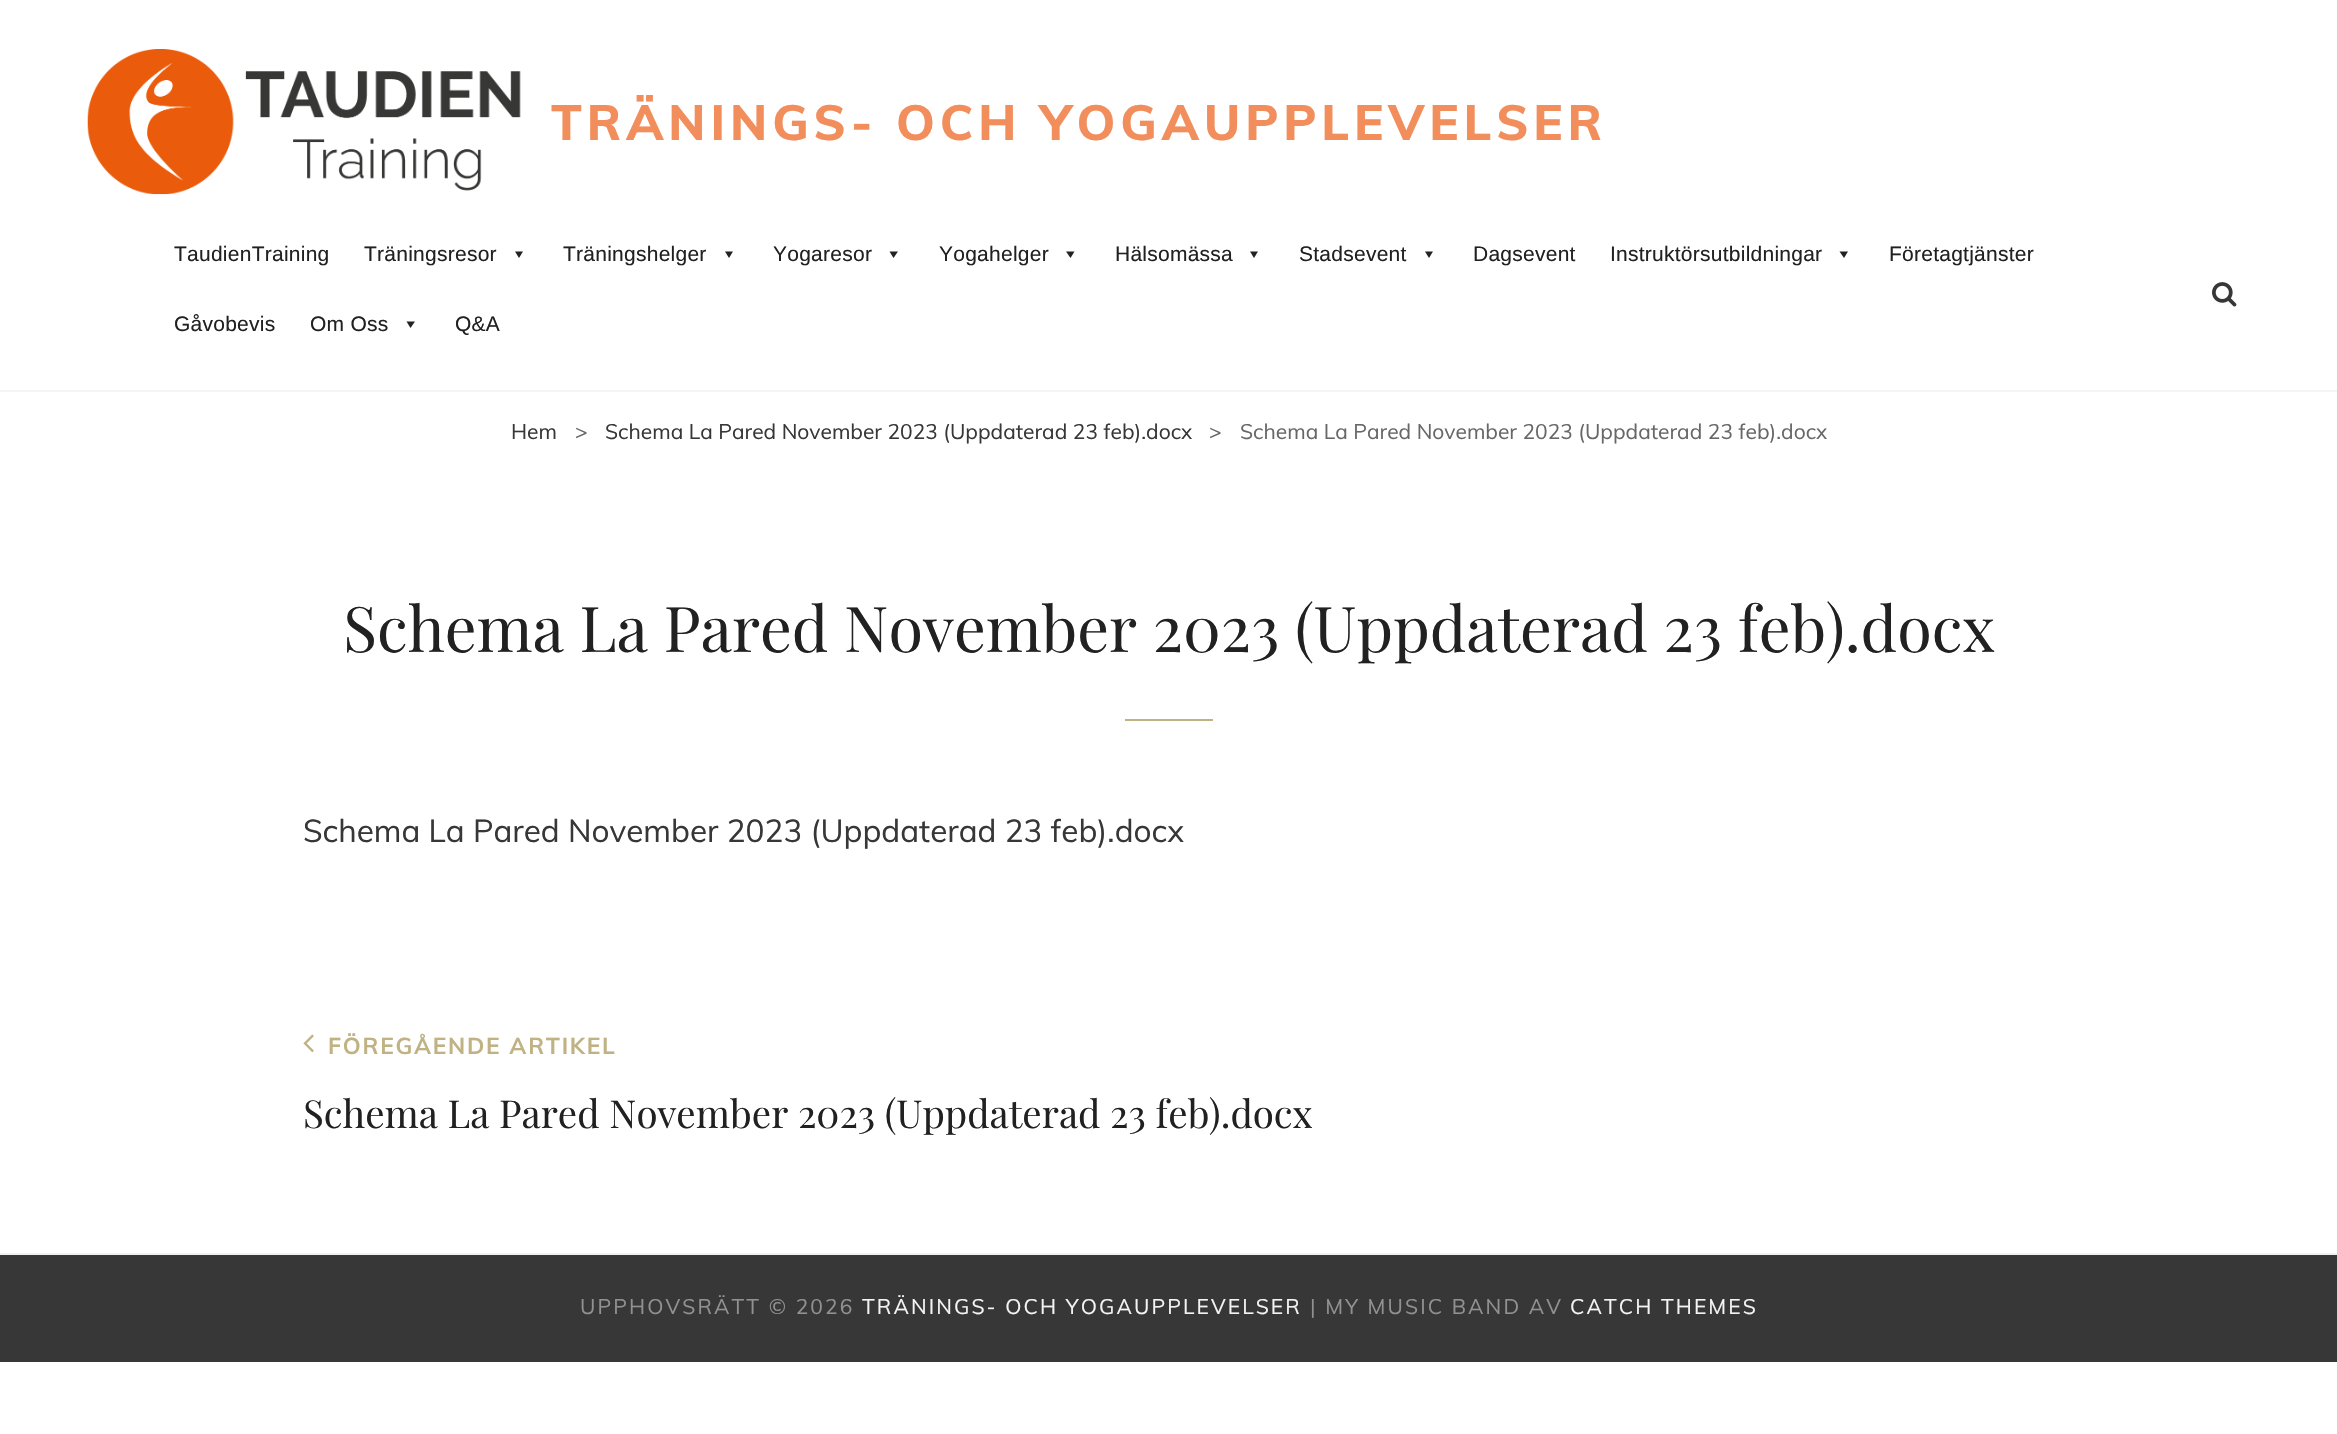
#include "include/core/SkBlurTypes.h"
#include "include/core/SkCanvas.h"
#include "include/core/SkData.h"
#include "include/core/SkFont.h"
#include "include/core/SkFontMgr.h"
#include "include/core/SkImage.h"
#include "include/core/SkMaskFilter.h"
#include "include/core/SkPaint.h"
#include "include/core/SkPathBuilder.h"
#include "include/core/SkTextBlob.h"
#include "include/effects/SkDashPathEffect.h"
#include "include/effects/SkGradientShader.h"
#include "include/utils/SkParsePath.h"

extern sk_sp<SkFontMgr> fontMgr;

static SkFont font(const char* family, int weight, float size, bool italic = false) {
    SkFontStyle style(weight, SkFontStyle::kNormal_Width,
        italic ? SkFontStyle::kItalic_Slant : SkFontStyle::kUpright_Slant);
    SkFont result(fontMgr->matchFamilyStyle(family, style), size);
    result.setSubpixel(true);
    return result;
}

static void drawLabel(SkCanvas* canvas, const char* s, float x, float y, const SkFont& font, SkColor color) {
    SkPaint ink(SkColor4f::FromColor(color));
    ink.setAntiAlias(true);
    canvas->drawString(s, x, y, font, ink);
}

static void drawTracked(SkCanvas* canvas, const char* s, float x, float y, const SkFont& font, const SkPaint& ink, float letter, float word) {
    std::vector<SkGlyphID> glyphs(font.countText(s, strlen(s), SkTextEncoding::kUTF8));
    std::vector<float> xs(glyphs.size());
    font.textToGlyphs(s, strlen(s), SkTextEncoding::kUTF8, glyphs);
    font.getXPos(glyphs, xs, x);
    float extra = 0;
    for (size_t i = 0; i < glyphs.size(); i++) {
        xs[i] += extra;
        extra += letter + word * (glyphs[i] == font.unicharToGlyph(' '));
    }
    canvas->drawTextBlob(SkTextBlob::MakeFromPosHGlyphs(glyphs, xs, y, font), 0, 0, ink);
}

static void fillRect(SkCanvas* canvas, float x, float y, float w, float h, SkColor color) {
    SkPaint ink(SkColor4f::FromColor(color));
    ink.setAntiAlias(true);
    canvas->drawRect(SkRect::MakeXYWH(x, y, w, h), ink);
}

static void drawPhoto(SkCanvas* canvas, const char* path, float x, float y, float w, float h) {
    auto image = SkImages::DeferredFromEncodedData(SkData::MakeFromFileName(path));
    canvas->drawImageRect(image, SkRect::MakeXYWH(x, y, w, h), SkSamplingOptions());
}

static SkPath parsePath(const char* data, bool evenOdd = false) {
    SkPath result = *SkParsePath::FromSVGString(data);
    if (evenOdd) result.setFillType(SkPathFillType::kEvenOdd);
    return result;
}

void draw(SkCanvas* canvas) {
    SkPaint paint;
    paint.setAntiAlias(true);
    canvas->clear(0xFFFFFFFF);
    fillRect(canvas, 0, 390, 2337, 2, 0xFFF4F4F4);
    drawPhoto(canvas, "assets/img1.png", 87, 49, 434, 146);
    SkFont font1 = font("Muli", 800, 49);
    paint.setColor(0xFFF28E5C);
    drawTracked(canvas, "TRÄNINGS- OCH YOGAUPPLEVELSER", 551, 140, font1, paint, 4.9f, 0);
    SkFont font2 = font("Liberation Sans", 400, 21);
    paint.setColor(0xFF212121);
    drawTracked(canvas, "TaudienTraining", 174, 261, font2, paint, 0.25f, 0);
    drawTracked(canvas, "Träningsresor", 364, 261, font2, paint, 0.25f, 0);
    paint.setColor(0xFF222222);
    canvas->drawPath(parsePath("M523 251.5L519 258L515 251.5Z"), paint);
    paint.setColor(0xFF212121);
    drawTracked(canvas, "Träningshelger", 563, 261, font2, paint, 0.25f, 0);
    paint.setColor(0xFF222222);
    canvas->drawPath(parsePath("M733 251.5L729 258L725 251.5Z"), paint);
    paint.setColor(0xFF212121);
    drawTracked(canvas, "Yogaresor", 773, 261, font2, paint, 0.25f, 0);
    paint.setColor(0xFF222222);
    canvas->drawPath(parsePath("M898 251.5L893.5 258L889.5 251.5Z"), paint);
    paint.setColor(0xFF212121);
    drawTracked(canvas, "Yogahelger", 939, 261, font2, paint, 0.25f, 0);
    paint.setColor(0xFF222222);
    canvas->drawPath(parsePath("M1074.5 251.5L1070.5 258L1066 251.5Z"), paint);
    paint.setColor(0xFF212121);
    drawTracked(canvas, "Hälsomässa", 1115, 261, font2, paint, 0.25f, 0);
    paint.setColor(0xFF222222);
    canvas->drawPath(parsePath("M1258 251.5L1254 258L1250 251.5Z"), paint);
    paint.setColor(0xFF212121);
    drawTracked(canvas, "Stadsevent", 1299, 261, font2, paint, 0.25f, 0);
    paint.setColor(0xFF222222);
    canvas->drawPath(parsePath("M1433 251.5L1429 258L1425 251.5Z"), paint);
    paint.setColor(0xFF212121);
    drawTracked(canvas, "Dagsevent", 1473, 261, font2, paint, 0.25f, 0);
    drawTracked(canvas, "Instruktörsutbildningar", 1610, 261, font2, paint, 0.25f, 0);
    paint.setColor(0xFF222222);
    canvas->drawPath(parsePath("M1848 251.5L1844 258L1839.5 251.5Z"), paint);
    paint.setColor(0xFF212121);
    drawTracked(canvas, "Företagtjänster", 1889, 261, font2, paint, 0.25f, 0);
    drawTracked(canvas, "Gåvobevis", 174, 331, font2, paint, 0.25f, 0);
    drawTracked(canvas, "Om Oss", 310, 331, font2, paint, 0.25f, 0);
    paint.setColor(0xFF222222);
    canvas->drawPath(parsePath("M415 321.5L410.5 328L406.5 321.5Z"), paint);
    paint.setColor(0xFF212121);
    drawTracked(canvas, "Q&A", 455, 331, font2, paint, 0.25f, 0);
    drawPhoto(canvas, "assets/img2.png", 2212, 282, 25, 25);
    SkFont font3 = font("Muli", 400, 21);
    drawLabel(canvas, "Hem", 511, 439, font3, 0xFF373737);
    drawLabel(canvas, ">", 575, 439, font3, 0xFF676767);
    drawLabel(canvas, "Schema La Pared November 2023 (Uppdaterad 23 feb).docx", 605, 439, font3, 0xFF373737);
    drawLabel(canvas, ">", 1209, 439, font3, 0xFF676767);
    drawLabel(canvas, "Schema La Pared November 2023 (Uppdaterad 23 feb).docx", 1240, 439, font3, 0xFF676767);
    fillRect(canvas, 0, 1253, 2337, 2, 0xFFF0F0F0);
    SkFont font4 = font("Playfair Display", 400, 63);
    drawLabel(canvas, "Schema La Pared November 2023 (Uppdaterad 23 feb).docx", 343, 652, font4, 0xFF212121);
    fillRect(canvas, 1125, 719, 88, 2, 0xFFC0B283);
    SkFont font5 = font("Muli", 400, 31.5f);
    drawLabel(canvas, "Schema La Pared November 2023 (Uppdaterad 23 feb).docx", 303, 842, font5, 0xFF373737);
    drawPhoto(canvas, "assets/img3.png", 303, 1034, 11, 19);
    SkFont font6 = font("Muli", 700, 22.75f);
    paint.setColor(0xFFC0B283);
    drawTracked(canvas, "FÖREGÅENDE ARTIKEL", 328, 1054, font6, paint, 1.75f, 0);
    SkFont font7 = font("Playfair Display", 400, 38.5f);
    drawLabel(canvas, "Schema La Pared November 2023 (Uppdaterad 23 feb).docx", 303, 1128, font7, 0xFF212121);
    fillRect(canvas, 0, 1255, 2337, 107, 0xFF373737);
    paint.setColor(0xFF919191);
    drawTracked(canvas, "UPPHOVSRÄTT © 2026", 580, 1314, font3, paint, 2.1f, 0);
    paint.setColor(0xFFF4F4F4);
    drawTracked(canvas, "TRÄNINGS- OCH YOGAUPPLEVELSER", 862, 1314, font3, paint, 2.1f, 0);
    paint.setColor(0xFF919191);
    drawTracked(canvas, "| MY MUSIC BAND AV", 1310, 1314, font3, paint, 2.1f, 0);
    paint.setColor(0xFFF4F4F4);
    drawTracked(canvas, "CATCH THEMES", 1570, 1314, font3, paint, 2.1f, 0);
}
